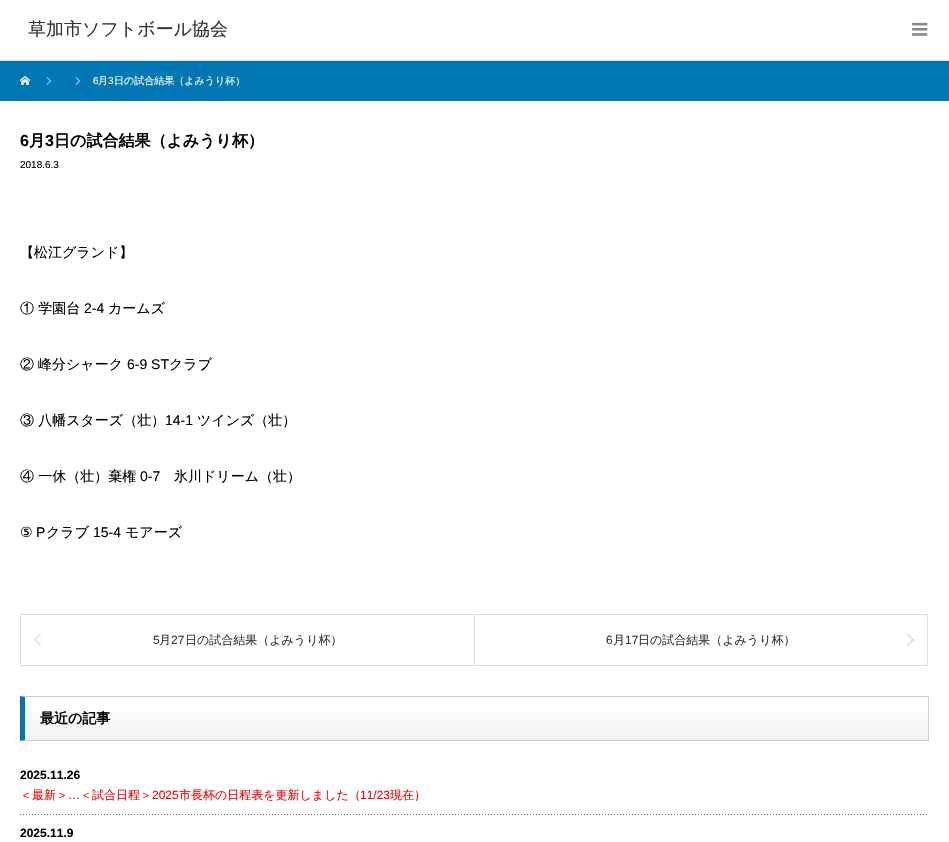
#include "include/core/SkBlurTypes.h"
#include "include/core/SkCanvas.h"
#include "include/core/SkData.h"
#include "include/core/SkFont.h"
#include "include/core/SkFontMgr.h"
#include "include/core/SkImage.h"
#include "include/core/SkMaskFilter.h"
#include "include/core/SkPaint.h"
#include "include/core/SkPathBuilder.h"
#include "include/core/SkTextBlob.h"
#include "include/effects/SkDashPathEffect.h"
#include "include/effects/SkGradientShader.h"
#include "include/utils/SkParsePath.h"

extern sk_sp<SkFontMgr> fontMgr;

static SkFont font(const char* family, int weight, float size, bool italic = false) {
    SkFontStyle style(weight, SkFontStyle::kNormal_Width,
        italic ? SkFontStyle::kItalic_Slant : SkFontStyle::kUpright_Slant);
    SkFont result(fontMgr->matchFamilyStyle(family, style), size);
    result.setSubpixel(true);
    return result;
}

static void drawLabel(SkCanvas* canvas, const char* s, float x, float y, const SkFont& font, SkColor color) {
    SkPaint ink(SkColor4f::FromColor(color));
    ink.setAntiAlias(true);
    canvas->drawString(s, x, y, font, ink);
}

static void fillRect(SkCanvas* canvas, float x, float y, float w, float h, SkColor color) {
    SkPaint ink(SkColor4f::FromColor(color));
    ink.setAntiAlias(true);
    canvas->drawRect(SkRect::MakeXYWH(x, y, w, h), ink);
}

static void drawPhoto(SkCanvas* canvas, const char* path, float x, float y, float w, float h) {
    auto image = SkImages::DeferredFromEncodedData(SkData::MakeFromFileName(path));
    canvas->drawImageRect(image, SkRect::MakeXYWH(x, y, w, h), SkSamplingOptions());
}

static SkPath parsePath(const char* data, bool evenOdd = false) {
    SkPath result = *SkParsePath::FromSVGString(data);
    if (evenOdd) result.setFillType(SkPathFillType::kEvenOdd);
    return result;
}

void draw(SkCanvas* canvas) {
    SkPaint paint;
    paint.setAntiAlias(true);
    canvas->clear(0xFFFFFFFF);
    fillRect(canvas, 0, 60, 949, 1, 0xFFDDDDDD);
    SkFont font1 = font("WenQuanYi Zen Hei", 500, 18);
    drawLabel(canvas, "草加市ソフトボール協会", 28, 35, font1, 0xFF333333);
    drawPhoto(canvas, "assets/img1.png", 912, 22, 16, 14);
    fillRect(canvas, 0, 61, 949, 40, 0xFF0077B3);
    drawPhoto(canvas, "assets/img2.png", 20, 76, 10, 9);
    drawPhoto(canvas, "assets/img3.png", 46, 77, 5, 8);
    drawPhoto(canvas, "assets/img3.png", 75, 77, 5, 8);
    SkFont font2 = font("Liberation Sans", 400, 10);
    drawLabel(canvas, "6", 93, 84, font2, 0xFFFFFFFF);
    SkFont font3 = font("WenQuanYi Zen Hei", 500, 10);
    drawLabel(canvas, "月", 98, 84, font3, 0xFFFFFFFF);
    drawLabel(canvas, "3", 108, 84, font2, 0xFFFFFFFF);
    drawLabel(canvas, "日の試合結果（よみうり杯）", 114, 84, font3, 0xFFFFFFFF);
    SkFont font4 = font("Liberation Sans", 700, 16);
    drawLabel(canvas, "6", 20, 146, font4, 0xFF000000);
    SkFont font5 = font("WenQuanYi Zen Hei", 700, 16);
    drawLabel(canvas, "月", 29, 146, font5, 0xFF000000);
    drawLabel(canvas, "3", 45, 146, font4, 0xFF000000);
    drawLabel(canvas, "日の試合結果（よみうり杯）", 54, 146, font5, 0xFF000000);
    drawLabel(canvas, "2018.6.3", 20, 168, font2, 0xFF000000);
    SkFont font6 = font("WenQuanYi Zen Hei", 500, 14);
    drawLabel(canvas, "【松江グランド】", 20, 257, font6, 0xFF000000);
    drawLabel(canvas, "① 学園台", 20, 313, font6, 0xFF000000);
    SkFont font7 = font("Liberation Sans", 400, 14);
    drawLabel(canvas, "2-4", 84, 313, font7, 0xFF000000);
    drawLabel(canvas, "カームズ", 108, 313, font6, 0xFF000000);
    drawLabel(canvas, "②", 20, 369, font6, 0xFF000000);
    drawLabel(canvas, "峰分シャーク", 38, 369, font6, 0xFF000000);
    drawLabel(canvas, "6-9 ST", 127, 369, font7, 0xFF000000);
    drawLabel(canvas, "クラブ", 169, 369, font6, 0xFF000000);
    drawLabel(canvas, "③ 八幡スターズ（壮）", 20, 425, font6, 0xFF000000);
    drawLabel(canvas, "14-1", 165, 425, font7, 0xFF000000);
    drawLabel(canvas, "ツインズ（壮）", 197, 425, font6, 0xFF000000);
    drawLabel(canvas, "④ 一休（壮）棄権", 20, 481, font6, 0xFF000000);
    drawLabel(canvas, "0-7", 140, 481, font7, 0xFF000000);
    drawLabel(canvas, "氷川ドリーム（壮）", 174, 481, font6, 0xFF000000);
    SkFont font8 = font("DejaVu Sans", 400, 14);
    drawLabel(canvas, "⑤", 20, 537, font8, 0xFF000000);
    drawLabel(canvas, "P", 36, 537, font7, 0xFF000000);
    drawLabel(canvas, "クラブ", 46, 537, font6, 0xFF000000);
    drawLabel(canvas, "15-4", 93, 537, font7, 0xFF000000);
    drawLabel(canvas, "モアーズ", 125, 537, font6, 0xFF000000);
    paint.setStroke(true);
    paint.setStrokeWidth(1);
    paint.setColor(0xFFDDDDDD);
    canvas->drawRect(SkRect::MakeXYWH(20.5f, 614.5f, 454, 51), paint);
    drawPhoto(canvas, "assets/img4.png", 34, 633, 7, 13);
    SkFont font9 = font("Liberation Sans", 400, 12);
    drawLabel(canvas, "5", 153, 644, font9, 0xFF333333);
    SkFont font10 = font("WenQuanYi Zen Hei", 500, 12);
    drawLabel(canvas, "月", 159, 644, font10, 0xFF333333);
    drawLabel(canvas, "27", 171, 644, font9, 0xFF333333);
    drawLabel(canvas, "日の試合結果（よみうり杯）", 185, 644, font10, 0xFF333333);
    canvas->drawRect(SkRect::MakeXYWH(474.5f, 614.5f, 453, 51), paint);
    drawLabel(canvas, "6", 606, 644, font9, 0xFF333333);
    drawLabel(canvas, "月", 613, 644, font10, 0xFF333333);
    drawLabel(canvas, "17", 625, 644, font9, 0xFF333333);
    drawLabel(canvas, "日の試合結果（よみうり杯）", 638, 644, font10, 0xFF333333);
    drawPhoto(canvas, "assets/img5.png", 907, 633, 7, 13);
    drawPhoto(canvas, "assets/img6.png", 25, 712, 903, 28);
    paint.setStroke(false);
    paint.setColor(0xFFCCCCCC);
    canvas->drawPath(parsePath("M20 696H929L928 697H25Z"), paint);
    fillRect(canvas, 928, 696, 1, 45, 0xFFCCCCCC);
    canvas->drawPath(parsePath("M929 741H20L25 740H928Z"), paint);
    paint.setColor(0xFF0077B3);
    canvas->drawPath(parsePath("M20 741V696L25 697V740Z"), paint);
    SkFont font11 = font("WenQuanYi Zen Hei", 700, 14);
    drawLabel(canvas, "最近の記事", 40, 723, font11, 0xFF000000);
    drawPhoto(canvas, "assets/img7.png", 20, 814, 907, 1);
    SkFont font12 = font("Liberation Sans", 700, 12);
    drawLabel(canvas, "2025.11.26", 20, 779, font12, 0xFF000000);
    drawLabel(canvas, "＜最新＞", 20, 799, font10, 0xFFFF0000);
    drawLabel(canvas, "…", 68, 799, font9, 0xFFFF0000);
    drawLabel(canvas, "＜試合日程＞", 80, 799, font10, 0xFFFF0000);
    drawLabel(canvas, "2025", 152, 799, font9, 0xFFFF0000);
    drawLabel(canvas, "市長杯の日程表を更新しました（", 179, 799, font10, 0xFFFF0000);
    drawLabel(canvas, "11/23", 360, 799, font9, 0xFFFF0000);
    drawLabel(canvas, "現在）", 390, 799, font10, 0xFFFF0000);
    drawLabel(canvas, "2025.11.9", 20, 837, font12, 0xFF000000);
}
